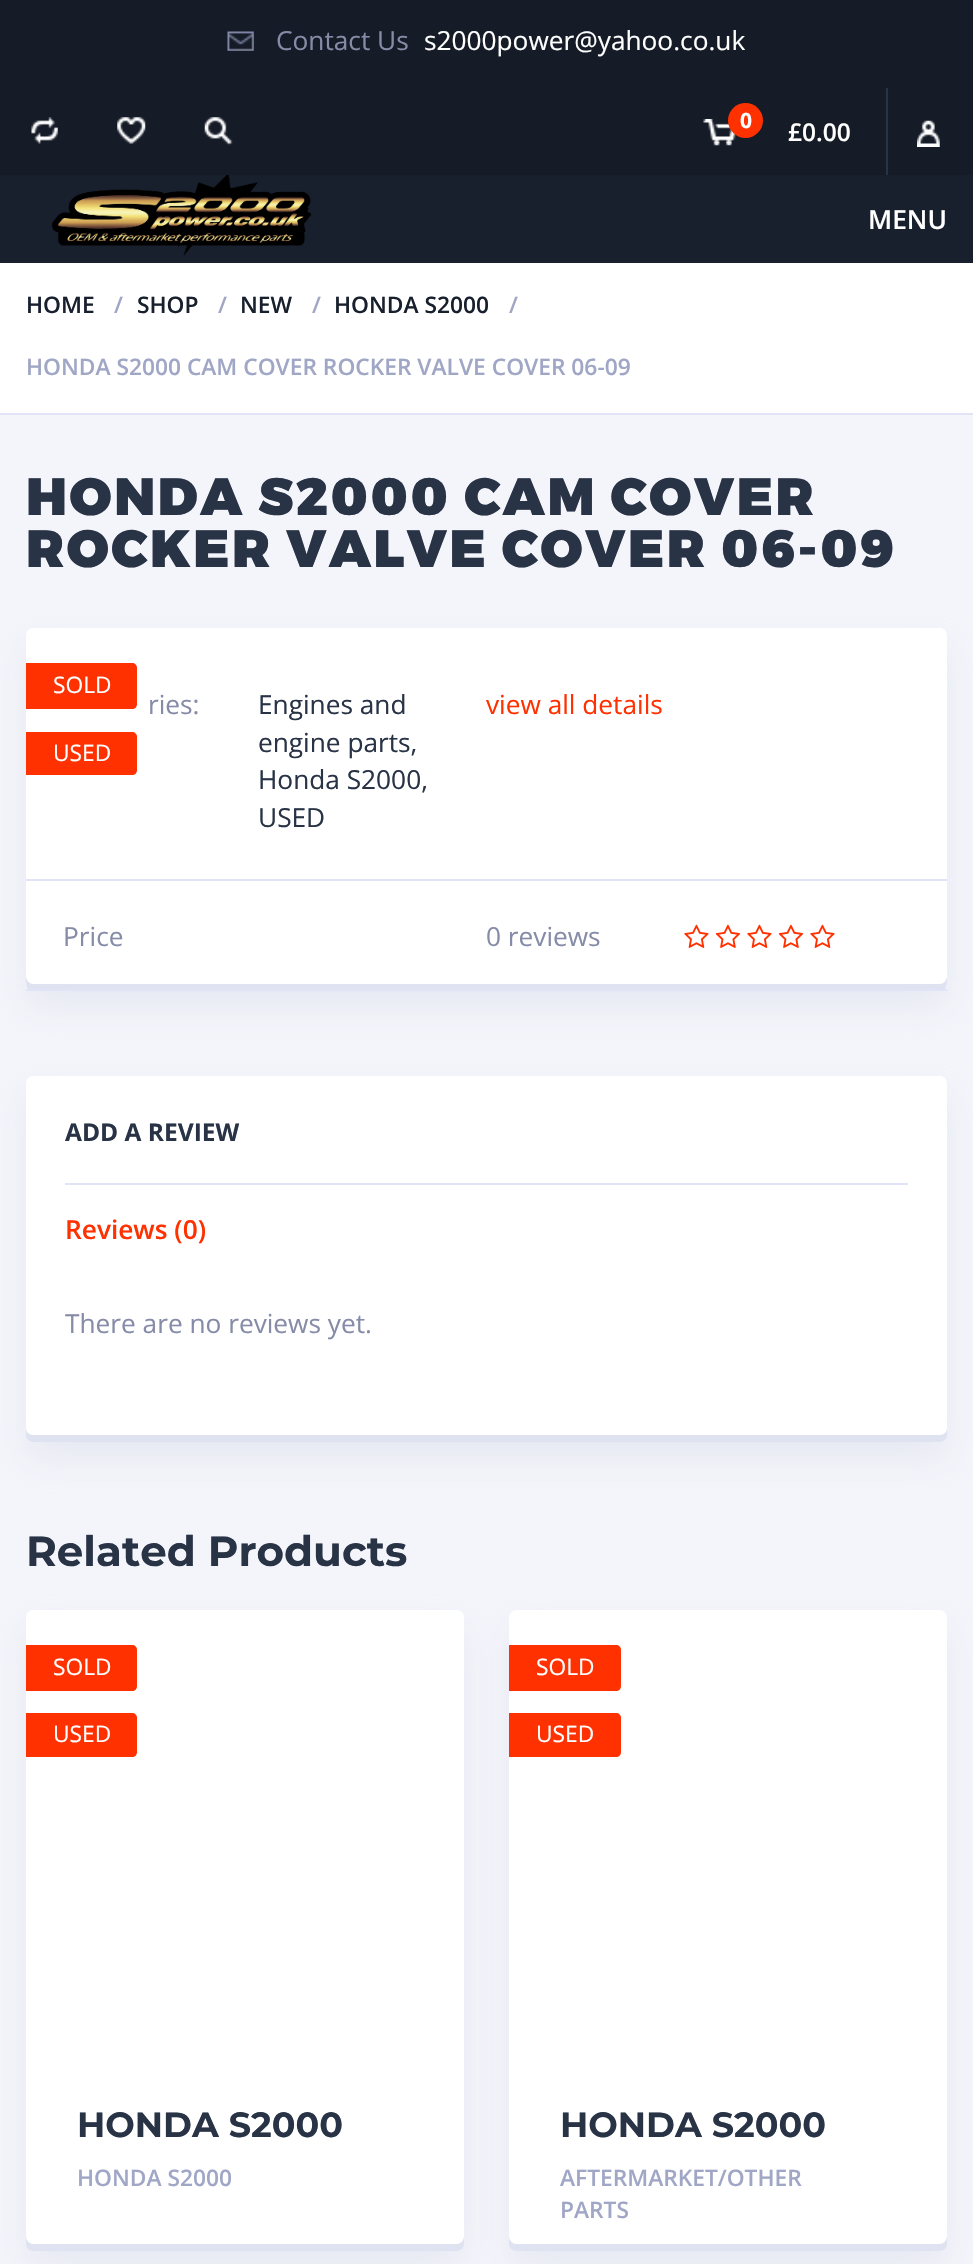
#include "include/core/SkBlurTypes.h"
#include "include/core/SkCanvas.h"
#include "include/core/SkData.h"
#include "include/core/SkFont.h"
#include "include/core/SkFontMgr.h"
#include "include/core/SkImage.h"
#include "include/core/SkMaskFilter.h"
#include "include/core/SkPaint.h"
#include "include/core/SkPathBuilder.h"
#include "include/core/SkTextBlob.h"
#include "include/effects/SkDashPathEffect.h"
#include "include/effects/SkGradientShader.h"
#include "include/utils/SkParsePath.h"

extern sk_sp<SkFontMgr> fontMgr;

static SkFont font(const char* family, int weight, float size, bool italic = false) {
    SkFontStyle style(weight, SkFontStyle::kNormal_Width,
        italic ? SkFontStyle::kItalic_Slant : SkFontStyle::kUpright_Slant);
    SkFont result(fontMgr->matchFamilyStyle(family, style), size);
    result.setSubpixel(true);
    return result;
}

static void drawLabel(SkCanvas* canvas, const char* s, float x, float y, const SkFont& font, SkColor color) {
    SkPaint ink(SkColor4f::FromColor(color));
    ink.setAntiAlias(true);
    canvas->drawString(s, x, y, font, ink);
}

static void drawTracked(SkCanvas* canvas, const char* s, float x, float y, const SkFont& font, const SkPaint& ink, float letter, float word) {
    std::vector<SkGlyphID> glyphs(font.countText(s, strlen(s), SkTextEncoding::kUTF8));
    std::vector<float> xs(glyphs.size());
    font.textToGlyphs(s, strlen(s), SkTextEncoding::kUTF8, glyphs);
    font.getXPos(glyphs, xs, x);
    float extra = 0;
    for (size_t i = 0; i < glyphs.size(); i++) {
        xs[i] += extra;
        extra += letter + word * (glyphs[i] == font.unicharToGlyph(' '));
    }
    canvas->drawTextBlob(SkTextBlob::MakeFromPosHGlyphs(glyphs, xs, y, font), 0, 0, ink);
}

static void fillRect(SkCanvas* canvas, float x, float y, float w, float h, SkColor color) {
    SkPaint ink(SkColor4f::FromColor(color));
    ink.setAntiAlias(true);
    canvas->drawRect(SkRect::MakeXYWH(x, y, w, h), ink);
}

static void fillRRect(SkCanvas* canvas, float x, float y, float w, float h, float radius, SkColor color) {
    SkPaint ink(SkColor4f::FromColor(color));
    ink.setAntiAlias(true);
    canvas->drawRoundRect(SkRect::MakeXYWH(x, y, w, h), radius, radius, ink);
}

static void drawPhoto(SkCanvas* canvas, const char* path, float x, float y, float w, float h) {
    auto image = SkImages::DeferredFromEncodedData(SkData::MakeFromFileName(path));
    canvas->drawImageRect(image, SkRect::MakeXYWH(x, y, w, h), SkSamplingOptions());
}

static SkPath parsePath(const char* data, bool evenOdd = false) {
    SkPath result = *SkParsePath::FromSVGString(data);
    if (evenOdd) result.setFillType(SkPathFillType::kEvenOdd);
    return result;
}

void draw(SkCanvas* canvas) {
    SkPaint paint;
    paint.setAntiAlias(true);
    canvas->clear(0xFFF4F5FB);
    fillRect(canvas, 0, 0, 973, 88, 0xFF151C28);
    drawPhoto(canvas, "assets/img1.png", 227, 31, 27, 20);
    SkFont font1 = font("Open Sans", 400, 26.25f);
    drawLabel(canvas, "Contact Us", 276, 50, font1, 0xFF868CA7);
    drawLabel(canvas, "s2000power@yahoo.co.uk", 424, 50, font1, 0xFFFFFFFF);
    fillRect(canvas, 0, 175, 973, 88, 0xFF18202E);
    fillRect(canvas, 0, 88, 973, 87, 0xFF151B27);
    drawPhoto(canvas, "assets/img2.png", 31, 117, 27, 27);
    drawPhoto(canvas, "assets/img3.png", 117, 117, 29, 27);
    drawPhoto(canvas, "assets/img4.png", 204, 117, 29, 29);
    drawPhoto(canvas, "assets/img5.png", 703, 119, 33, 27);
    paint.setColor(0xFFFF3100);
    canvas->drawCircle(745.5f, 120.5f, 17.5f, paint);
    SkFont font2 = font("Open Sans", 700, 21);
    drawLabel(canvas, "0", 740, 128, font2, 0xFFFFFFFF);
    SkFont font3 = font("Open Sans", 600, 24.5f);
    drawLabel(canvas, "£0.00", 788, 141, font3, 0xFFFFFFFF);
    fillRect(canvas, 886, 88, 2, 87, 0xFF263349);
    drawPhoto(canvas, "assets/img6.png", 917, 120, 23, 27);
    drawPhoto(canvas, "assets/img7.png", 51, 175, 261, 81);
    SkFont font4 = font("Open Sans", 600, 26.25f);
    drawLabel(canvas, "MENU", 868, 229, font4, 0xFFFFFFFF);
    fillRect(canvas, 0, 263, 973, 150, 0xFFFFFFFF);
    fillRect(canvas, 0, 413, 973, 2, 0xFFE0E4F6);
    SkFont font5 = font("Open Sans", 600, 22.75f);
    drawLabel(canvas, "HOME", 26, 313, font5, 0xFF18202E);
    drawLabel(canvas, "/", 114, 313, font5, 0xFFA0A6C5);
    drawLabel(canvas, "SHOP", 137, 313, font5, 0xFF18202E);
    drawLabel(canvas, "/", 218, 313, font5, 0xFFA0A6C5);
    drawLabel(canvas, "NEW", 240, 313, font5, 0xFF18202E);
    drawLabel(canvas, "/", 312, 313, font5, 0xFFA0A6C5);
    drawLabel(canvas, "HONDA S2000", 334, 313, font5, 0xFF18202E);
    drawLabel(canvas, "/", 509, 313, font5, 0xFFA0A6C5);
    drawLabel(canvas, "HONDA S2000 CAM COVER ROCKER VALVE COVER 06-09", 26, 375, font5, 0xFFA0A6C5);
    SkFont font6 = font("Montserrat", 900, 52.5f);
    paint.setColor(0xFF283346);
    drawTracked(canvas, "HONDA S2000 CAM COVER", 26, 515, font6, paint, 2.6f, 0);
    drawTracked(canvas, "ROCKER VALVE COVER 06-09", 26, 567, font6, paint, 2.6f, 0);
    paint.setColor(0x40C0C4D7);
    paint.setMaskFilter(SkMaskFilter::MakeBlur(kNormal_SkBlurStyle, 17.5f));
    canvas->drawRoundRect(SkRect::MakeXYWH(26, 646, 921, 362), 7, 7, paint);
    paint.setMaskFilter(nullptr);
    fillRRect(canvas, 26, 628, 921, 363, 7, 0xFFFFFFFF);
    paint.setColor(0xFFDFE2F0);
    canvas->drawPath(parsePath("M26 976C26 982 25 991 33 991H940C948 991 947 982 947 976C947 980 944 984 940 984H33C29 984 26 980 26 976Z"), paint);
    paint.setColor(0xFFFF3100);
    canvas->drawPath(parsePath("M26 663H132C135 663 137 665 137 668V704C137 707 135 709 132 709H26Z"), paint);
    SkFont font7 = font("Open Sans", 400, 22.75f);
    drawLabel(canvas, "SOLD", 53, 693, font7, 0xFFFFFFFF);
    canvas->drawPath(parsePath("M26 732H132C135 732 137 734 137 737V770C137 773 135 775 132 775H26Z"), paint);
    drawLabel(canvas, "USED", 53, 761, font7, 0xFFFFFFFF);
    fillRect(canvas, 26, 879, 921, 2, 0xFFE0E4F6);
    drawLabel(canvas, "ries:", 148, 714, font1, 0xFF868CA7);
    drawLabel(canvas, "Engines and", 258, 714, font1, 0xFF283346);
    drawLabel(canvas, "engine parts,", 258, 752, font1, 0xFF283346);
    drawLabel(canvas, "Honda S2000,", 258, 789, font1, 0xFF283346);
    drawLabel(canvas, "USED", 258, 827, font1, 0xFF283346);
    drawLabel(canvas, "view all details", 486, 714, font1, 0xFFFF3100);
    fillRect(canvas, 26, 989, 921, 2, 0xFFE0E4F6);
    drawLabel(canvas, "Price", 63, 946, font1, 0xFF868CA7);
    drawLabel(canvas, "0 reviews", 486, 946, font1, 0xFF868CA7);
    drawPhoto(canvas, "assets/img8.png", 684, 924, 25, 24);
    drawPhoto(canvas, "assets/img9.png", 715, 924, 26, 24);
    drawPhoto(canvas, "assets/img8.png", 747, 924, 25, 24);
    drawPhoto(canvas, "assets/img9.png", 778, 924, 26, 24);
    drawPhoto(canvas, "assets/img8.png", 810, 924, 25, 24);
    paint.setColor(0x40C0C4D7);
    paint.setMaskFilter(SkMaskFilter::MakeBlur(kNormal_SkBlurStyle, 17.5f));
    canvas->drawRoundRect(SkRect::MakeXYWH(26, 1094, 921, 366), 7, 7, paint);
    paint.setMaskFilter(nullptr);
    fillRRect(canvas, 26, 1076, 921, 366, 7, 0xFFFFFFFF);
    paint.setColor(0xFFDFE2F0);
    canvas->drawPath(parsePath("M26 1428V1435C26 1439 29 1442 33 1442H940C944 1442 947 1439 947 1435V1428C947 1432 944 1435 940 1435H33C29 1435 26 1432 26 1428Z"), paint);
    SkFont font8 = font("Open Sans", 700, 24.5f);
    drawLabel(canvas, "ADD A REVIEW", 65, 1141, font8, 0xFF283346);
    fillRect(canvas, 65, 1183, 843, 2, 0xFFE0E4F6);
    drawLabel(canvas, "Reviews (0)", 65, 1239, font4, 0xFFFF3100);
    drawLabel(canvas, "There are no reviews yet.", 65, 1333, font1, 0xFF868CA7);
    SkFont font9 = font("Montserrat", 700, 42);
    drawLabel(canvas, "Related Products", 26, 1566, font9, 0xFF283346);
    paint.setColor(0x40C0C4D7);
    paint.setMaskFilter(SkMaskFilter::MakeBlur(kNormal_SkBlurStyle, 17.5f));
    canvas->drawRoundRect(SkRect::MakeXYWH(26, 1628, 438, 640), 7, 7, paint);
    paint.setMaskFilter(nullptr);
    fillRRect(canvas, 26, 1610, 438, 641, 7, 0xFFFFFFFF);
    paint.setColor(0xFFDFE2F0);
    canvas->drawPath(parsePath("M26 2236V2244C26 2248 29 2251 33 2251H457C461 2251 464 2248 464 2244V2236C464 2240 461 2244 457 2244H33C29 2244 26 2240 26 2236Z"), paint);
    paint.setColor(0xFFFF3100);
    canvas->drawPath(parsePath("M26 1645H132C135 1645 137 1647 137 1650V1686C137 1689 135 1691 132 1691H26Z"), paint);
    drawLabel(canvas, "SOLD", 53, 1675, font7, 0xFFFFFFFF);
    canvas->drawPath(parsePath("M26 1713H132C135 1713 137 1715 137 1718V1752C137 1755 135 1757 132 1757H26Z"), paint);
    drawLabel(canvas, "USED", 53, 1742, font7, 0xFFFFFFFF);
    SkFont font10 = font("Montserrat", 700, 35);
    drawLabel(canvas, "HONDA S2000", 77, 2137, font10, 0xFF283346);
    drawLabel(canvas, "HONDA S2000", 77, 2186, font5, 0xFFA0A6C5);
    paint.setColor(0x40C0C4D7);
    paint.setMaskFilter(SkMaskFilter::MakeBlur(kNormal_SkBlurStyle, 17.5f));
    canvas->drawRoundRect(SkRect::MakeXYWH(509, 1628, 438, 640), 7, 7, paint);
    paint.setMaskFilter(nullptr);
    fillRRect(canvas, 509, 1610, 438, 641, 7, 0xFFFFFFFF);
    paint.setColor(0xFFDFE2F0);
    canvas->drawPath(parsePath("M509 2236V2244C509 2248 512 2251 516 2251H940C944 2251 947 2248 947 2244V2236C947 2240 944 2244 940 2244H516C512 2244 509 2240 509 2236Z"), paint);
    paint.setColor(0xFFFF3100);
    canvas->drawPath(parsePath("M509 1645H616C619 1645 621 1647 621 1650V1686C621 1689 619 1691 616 1691H509Z"), paint);
    drawLabel(canvas, "SOLD", 536, 1675, font7, 0xFFFFFFFF);
    canvas->drawPath(parsePath("M509 1713H616C619 1713 621 1715 621 1718V1752C621 1755 619 1757 616 1757H509Z"), paint);
    drawLabel(canvas, "USED", 536, 1742, font7, 0xFFFFFFFF);
    drawLabel(canvas, "HONDA S2000", 560, 2137, font10, 0xFF283346);
    drawLabel(canvas, "AFTERMARKET/OTHER", 560, 2186, font5, 0xFFA0A6C5);
    drawLabel(canvas, "PARTS", 560, 2218, font5, 0xFFA0A6C5);
}
